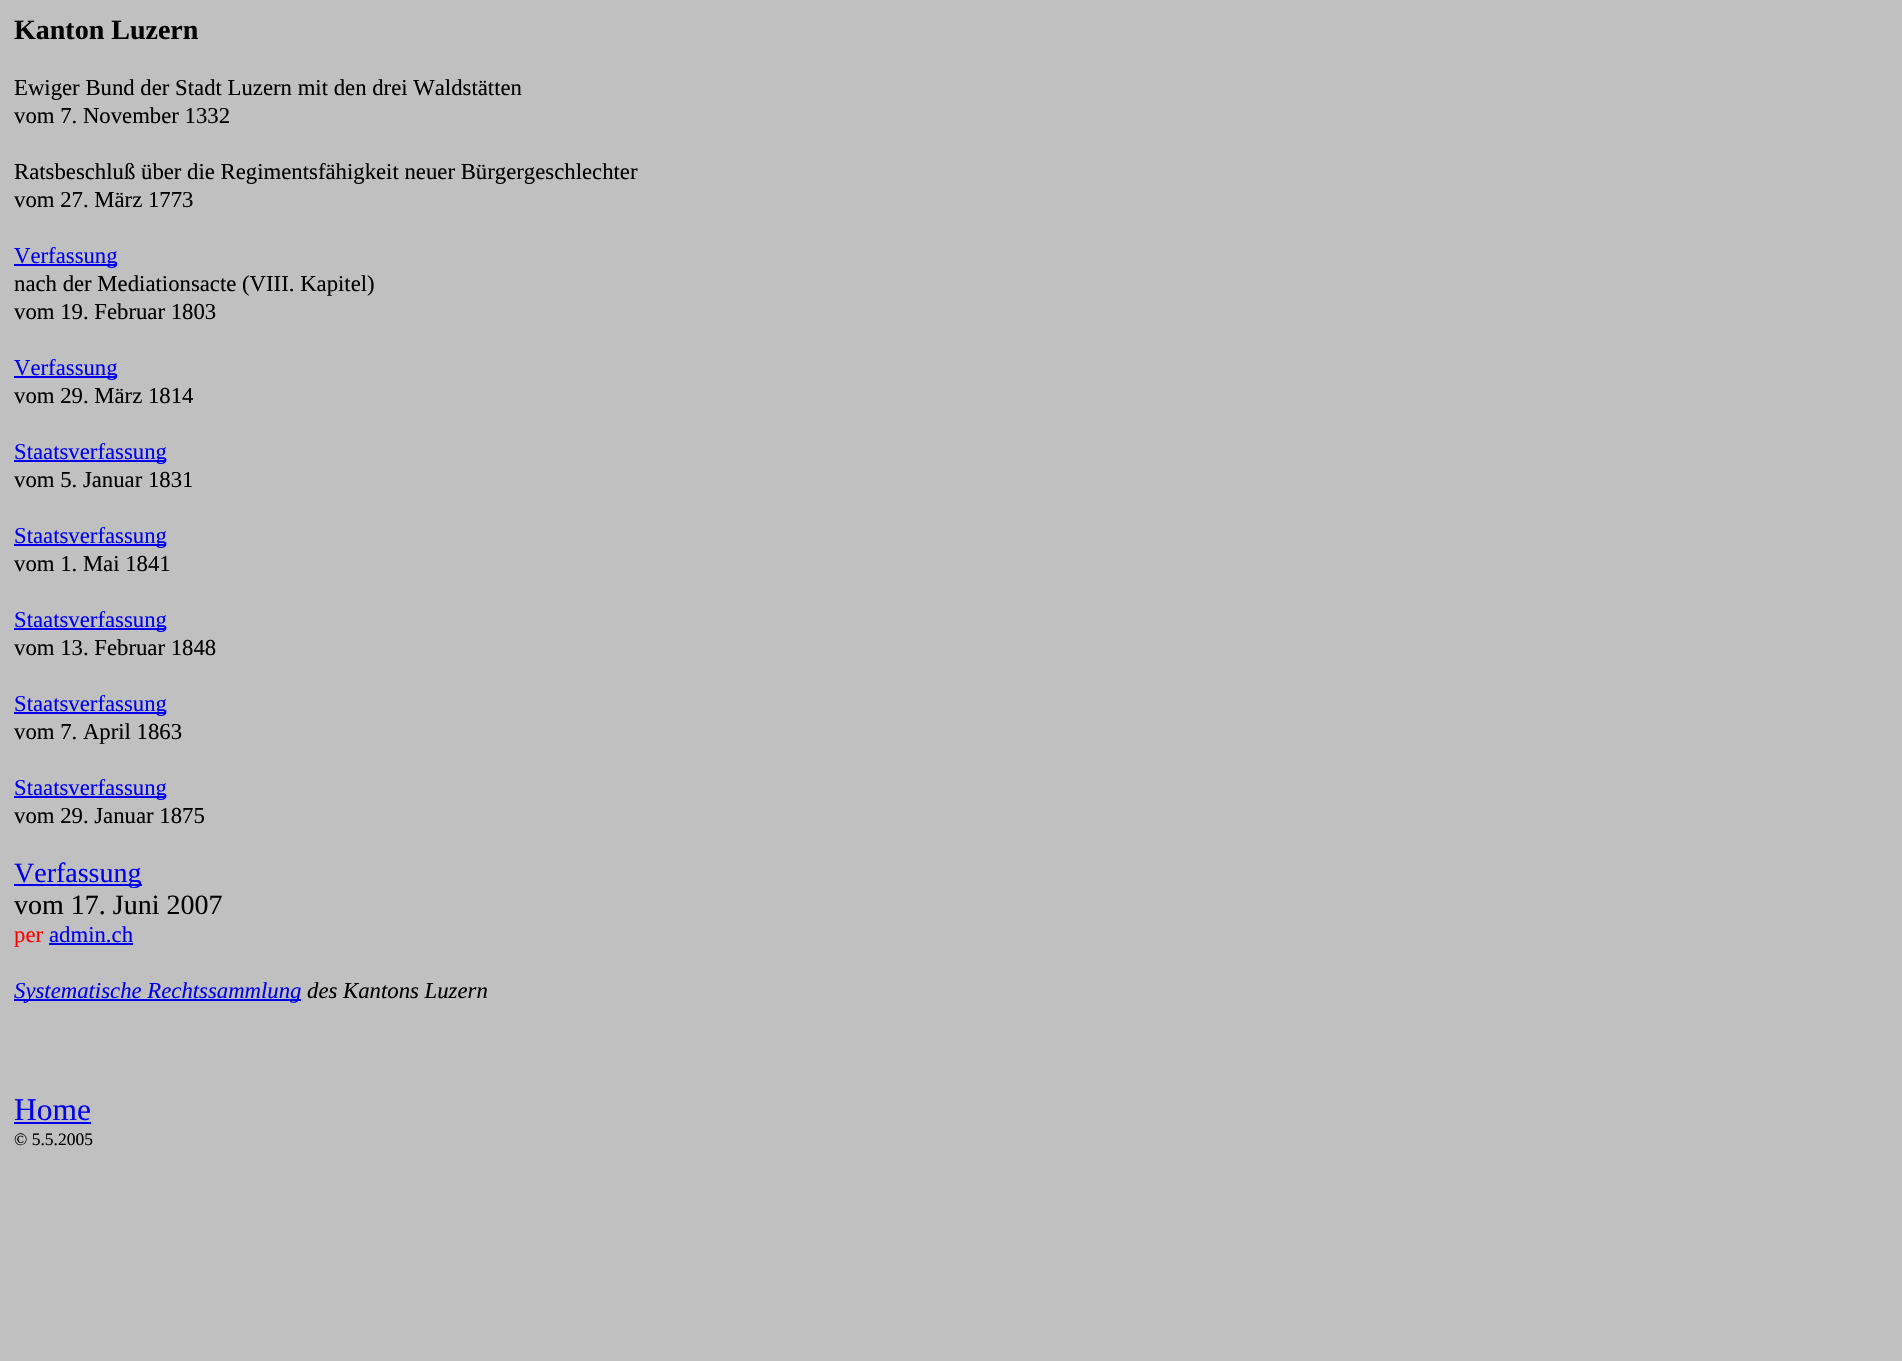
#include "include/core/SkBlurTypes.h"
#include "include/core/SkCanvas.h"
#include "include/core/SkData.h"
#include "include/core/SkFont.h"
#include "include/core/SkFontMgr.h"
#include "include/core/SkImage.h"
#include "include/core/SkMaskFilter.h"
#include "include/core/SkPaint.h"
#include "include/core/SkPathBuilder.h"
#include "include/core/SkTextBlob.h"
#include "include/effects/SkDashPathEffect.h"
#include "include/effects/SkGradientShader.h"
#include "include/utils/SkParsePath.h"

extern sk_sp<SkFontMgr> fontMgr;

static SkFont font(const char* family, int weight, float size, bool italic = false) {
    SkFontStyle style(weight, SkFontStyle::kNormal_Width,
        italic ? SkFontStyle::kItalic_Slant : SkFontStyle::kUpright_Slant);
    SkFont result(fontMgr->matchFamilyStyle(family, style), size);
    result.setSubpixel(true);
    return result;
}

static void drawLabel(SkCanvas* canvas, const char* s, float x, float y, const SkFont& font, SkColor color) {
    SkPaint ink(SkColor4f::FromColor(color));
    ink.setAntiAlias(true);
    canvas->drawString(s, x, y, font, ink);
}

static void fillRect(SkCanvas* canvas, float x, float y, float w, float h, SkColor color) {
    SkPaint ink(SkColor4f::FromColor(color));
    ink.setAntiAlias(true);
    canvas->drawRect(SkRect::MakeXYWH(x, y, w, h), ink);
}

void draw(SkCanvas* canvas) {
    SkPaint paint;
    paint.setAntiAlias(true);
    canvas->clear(0xFFC0C0C0);
    SkFont font1 = font("Liberation Serif", 700, 28);
    drawLabel(canvas, "Kanton Luzern", 14, 39, font1, 0xFF000000);
    SkFont font2 = font("Liberation Serif", 400, 22.75f);
    drawLabel(canvas, "Ewiger Bund der Stadt Luzern mit den drei Waldstätten", 14, 95, font2, 0xFF000000);
    drawLabel(canvas, "vom 7. November 1332", 14, 123, font2, 0xFF000000);
    drawLabel(canvas, "Ratsbeschluß über die Regimentsfähigkeit neuer Bürgergeschlechter", 14, 179, font2, 0xFF000000);
    drawLabel(canvas, "vom 27. März 1773", 14, 207, font2, 0xFF000000);
    fillRect(canvas, 14, 264, 103, 2, 0xFF0000EE);
    drawLabel(canvas, "Verfassung", 14, 263, font2, 0xFF0000EE);
    drawLabel(canvas, "nach der Mediationsacte (VIII. Kapitel)", 14, 291, font2, 0xFF000000);
    drawLabel(canvas, "vom 19. Februar 1803", 14, 319, font2, 0xFF000000);
    fillRect(canvas, 14, 376, 103, 2, 0xFF0000EE);
    drawLabel(canvas, "Verfassung", 14, 375, font2, 0xFF0000EE);
    drawLabel(canvas, "vom 29. März 1814", 14, 403, font2, 0xFF000000);
    fillRect(canvas, 14, 460, 152, 2, 0xFF0000EE);
    drawLabel(canvas, "Staatsverfassung", 14, 459, font2, 0xFF0000EE);
    drawLabel(canvas, "vom 5. Januar 1831", 14, 487, font2, 0xFF000000);
    fillRect(canvas, 14, 544, 152, 2, 0xFF0000EE);
    drawLabel(canvas, "Staatsverfassung", 14, 543, font2, 0xFF0000EE);
    drawLabel(canvas, "vom 1. Mai 1841", 14, 571, font2, 0xFF000000);
    fillRect(canvas, 14, 628, 152, 2, 0xFF0000EE);
    drawLabel(canvas, "Staatsverfassung", 14, 627, font2, 0xFF0000EE);
    drawLabel(canvas, "vom 13. Februar 1848", 14, 655, font2, 0xFF000000);
    fillRect(canvas, 14, 712, 152, 2, 0xFF0000EE);
    drawLabel(canvas, "Staatsverfassung", 14, 711, font2, 0xFF0000EE);
    drawLabel(canvas, "vom 7. April 1863", 14, 739, font2, 0xFF000000);
    fillRect(canvas, 14, 796, 152, 2, 0xFF0000EE);
    drawLabel(canvas, "Staatsverfassung", 14, 795, font2, 0xFF0000EE);
    drawLabel(canvas, "vom 29. Januar 1875", 14, 823, font2, 0xFF000000);
    fillRect(canvas, 14, 884, 128, 2, 0xFF0000EE);
    SkFont font3 = font("Liberation Serif", 400, 28);
    drawLabel(canvas, "Verfassung", 14, 882, font3, 0xFF0000EE);
    drawLabel(canvas, "vom 17. Juni 2007", 14, 914, font3, 0xFF000000);
    drawLabel(canvas, "per", 14, 942, font2, 0xFFFF0000);
    fillRect(canvas, 49, 943, 84, 2, 0xFF0000EE);
    drawLabel(canvas, "admin.ch", 49, 942, font2, 0xFF0000EE);
    fillRect(canvas, 14, 999, 287, 2, 0xFF0000EE);
    SkFont font4 = font("Liberation Serif", 400, 22.75f, true);
    drawLabel(canvas, "Systematische Rechtssammlung", 14, 998, font4, 0xFF0000EE);
    drawLabel(canvas, "des Kantons Luzern", 307, 998, font4, 0xFF000000);
    SkFont font5 = font("Liberation Serif", 400, 31.5f);
    drawLabel(canvas, "Home", 14, 1120, font5, 0xFF0000EE);
    fillRect(canvas, 14, 1122, 77, 2, 0xFF0000EE);
    SkFont font6 = font("Liberation Serif", 400, 17.5f);
    drawLabel(canvas, "© 5.5.2005", 14, 1145, font6, 0xFF000000);
}
